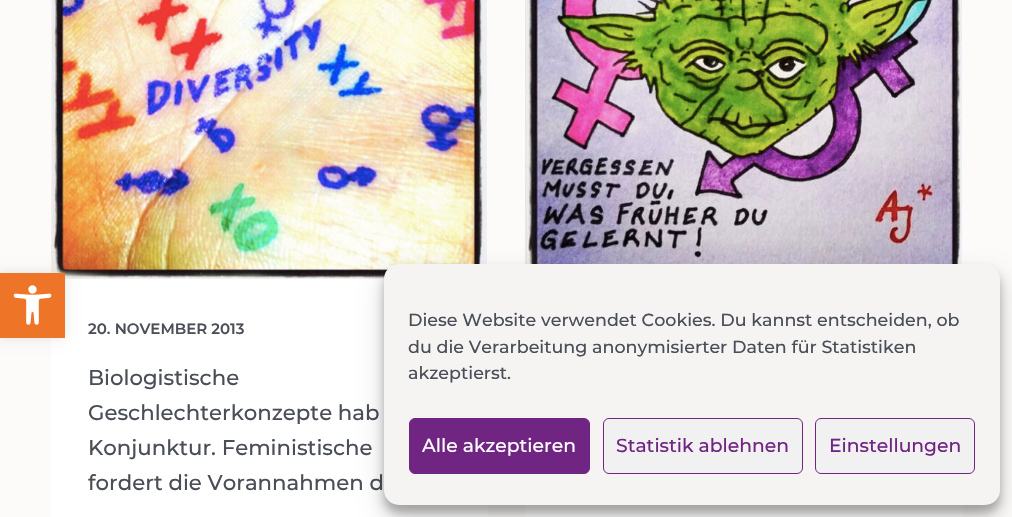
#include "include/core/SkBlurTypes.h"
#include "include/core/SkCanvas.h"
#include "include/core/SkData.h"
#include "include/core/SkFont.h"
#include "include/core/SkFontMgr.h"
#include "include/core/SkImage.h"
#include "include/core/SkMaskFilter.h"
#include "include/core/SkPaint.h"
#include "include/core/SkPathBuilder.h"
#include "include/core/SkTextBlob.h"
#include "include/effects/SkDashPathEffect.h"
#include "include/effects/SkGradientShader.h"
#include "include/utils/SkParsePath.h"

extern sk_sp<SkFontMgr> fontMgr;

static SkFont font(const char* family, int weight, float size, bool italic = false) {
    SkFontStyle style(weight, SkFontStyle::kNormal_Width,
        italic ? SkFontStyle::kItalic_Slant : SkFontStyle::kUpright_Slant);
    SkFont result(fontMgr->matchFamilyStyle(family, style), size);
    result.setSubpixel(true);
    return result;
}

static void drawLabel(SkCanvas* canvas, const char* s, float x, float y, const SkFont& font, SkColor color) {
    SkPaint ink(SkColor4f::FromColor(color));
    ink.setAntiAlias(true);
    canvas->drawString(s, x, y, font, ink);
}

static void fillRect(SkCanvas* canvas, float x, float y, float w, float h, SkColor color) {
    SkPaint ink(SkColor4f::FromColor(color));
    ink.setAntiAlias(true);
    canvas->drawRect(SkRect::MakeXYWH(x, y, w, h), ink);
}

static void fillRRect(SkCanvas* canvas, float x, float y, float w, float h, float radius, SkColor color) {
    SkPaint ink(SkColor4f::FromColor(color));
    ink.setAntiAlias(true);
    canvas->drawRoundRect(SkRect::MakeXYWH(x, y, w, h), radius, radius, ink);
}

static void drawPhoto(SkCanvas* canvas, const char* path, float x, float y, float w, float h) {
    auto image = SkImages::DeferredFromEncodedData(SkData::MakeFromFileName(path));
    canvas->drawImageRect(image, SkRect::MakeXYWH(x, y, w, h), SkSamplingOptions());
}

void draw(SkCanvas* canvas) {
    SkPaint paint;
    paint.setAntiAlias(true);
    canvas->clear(0xFFFCFBFA);
    fillRect(canvas, 51, 0, 437, 517, 0xFFFFFFFF);
    drawPhoto(canvas, "assets/img2.png", 51, 0, 437, 279);
    paint.setColor(0x1A000000);
    paint.setMaskFilter(SkMaskFilter::MakeBlur(kNormal_SkBlurStyle, 6));
    canvas->drawRect(SkRect::MakeXYWH(0, 273, 65, 65), paint);
    paint.setMaskFilter(nullptr);
    fillRect(canvas, 0, 273, 65, 65, 0xFFEE7528);
    drawPhoto(canvas, "assets/img1.png", 13, 285, 39, 40);
    SkFont font1 = font("Montserrat", 600, 15);
    drawLabel(canvas, "20. NOVEMBER 2013", 88, 334, font1, 0xFF4A4E57);
    SkFont font2 = font("Montserrat", 500, 21.25f);
    drawLabel(canvas, "Biologistische", 88, 385, font2, 0xFF4A4E57);
    drawLabel(canvas, "Geschlechterkonzepte hab", 88, 420, font2, 0xFF4A4E57);
    drawLabel(canvas, "Konjunktur. Feministische", 88, 455, font2, 0xFF4A4E57);
    drawLabel(canvas, "fordert die Vorannahmen d", 88, 490, font2, 0xFF4A4E57);
    fillRect(canvas, 525, 0, 438, 517, 0xFFFFFFFF);
    drawPhoto(canvas, "assets/img3.png", 525, 0, 438, 264);
    paint.setColor(0x3B000000);
    paint.setMaskFilter(SkMaskFilter::MakeBlur(kNormal_SkBlurStyle, 4));
    canvas->drawRoundRect(SkRect::MakeXYWH(384, 271, 616, 242), 15, 15, paint);
    paint.setMaskFilter(nullptr);
    paint.setColor(0x30000000);
    paint.setMaskFilter(SkMaskFilter::MakeBlur(kNormal_SkBlurStyle, 12.5f));
    canvas->drawRoundRect(SkRect::MakeXYWH(384, 276, 616, 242), 15, 15, paint);
    paint.setMaskFilter(nullptr);
    fillRRect(canvas, 384, 264, 616, 241, 15, 0xFFF5F4F3);
    SkFont font3 = font("Montserrat", 500, 17.5f);
    drawLabel(canvas, "Diese Website verwendet Cookies. Du kannst entscheiden, ob", 408, 326, font3, 0xFF4A4E57);
    drawLabel(canvas, "du die Verarbeitung anonymisierter Daten für Statistiken", 408, 353, font3, 0xFF4A4E57);
    drawLabel(canvas, "akzeptierst.", 408, 379, font3, 0xFF4A4E57);
    paint.setColor(0xFF712583);
    canvas->drawRoundRect(SkRect::MakeXYWH(409.5f, 418.5f, 180, 55), 5.5f, 5.5f, paint);
    paint.setStroke(true);
    paint.setStrokeWidth(1);
    canvas->drawRoundRect(SkRect::MakeXYWH(409.5f, 418.5f, 180, 55), 5.5f, 5.5f, paint);
    SkFont font4 = font("Montserrat", 500, 18.75f);
    drawLabel(canvas, "Alle akzeptieren", 422, 452, font4, 0xFFFFFFFF);
    paint.setStroke(false);
    paint.setColor(0xFFF1F1F1);
    canvas->drawRoundRect(SkRect::MakeXYWH(603.5f, 418.5f, 199, 55), 5.5f, 5.5f, paint);
    paint.setStroke(true);
    paint.setColor(0xFF712583);
    canvas->drawRoundRect(SkRect::MakeXYWH(603.5f, 418.5f, 199, 55), 5.5f, 5.5f, paint);
    drawLabel(canvas, "Statistik ablehnen", 616, 452, font4, 0xFF712583);
    paint.setStroke(false);
    paint.setColor(0xFFF1F1F1);
    canvas->drawRoundRect(SkRect::MakeXYWH(815.5f, 418.5f, 159, 55), 5.5f, 5.5f, paint);
    paint.setStroke(true);
    paint.setColor(0xFF712583);
    canvas->drawRoundRect(SkRect::MakeXYWH(815.5f, 418.5f, 159, 55), 5.5f, 5.5f, paint);
    drawLabel(canvas, "Einstellungen", 829, 452, font4, 0xFF712583);
}
